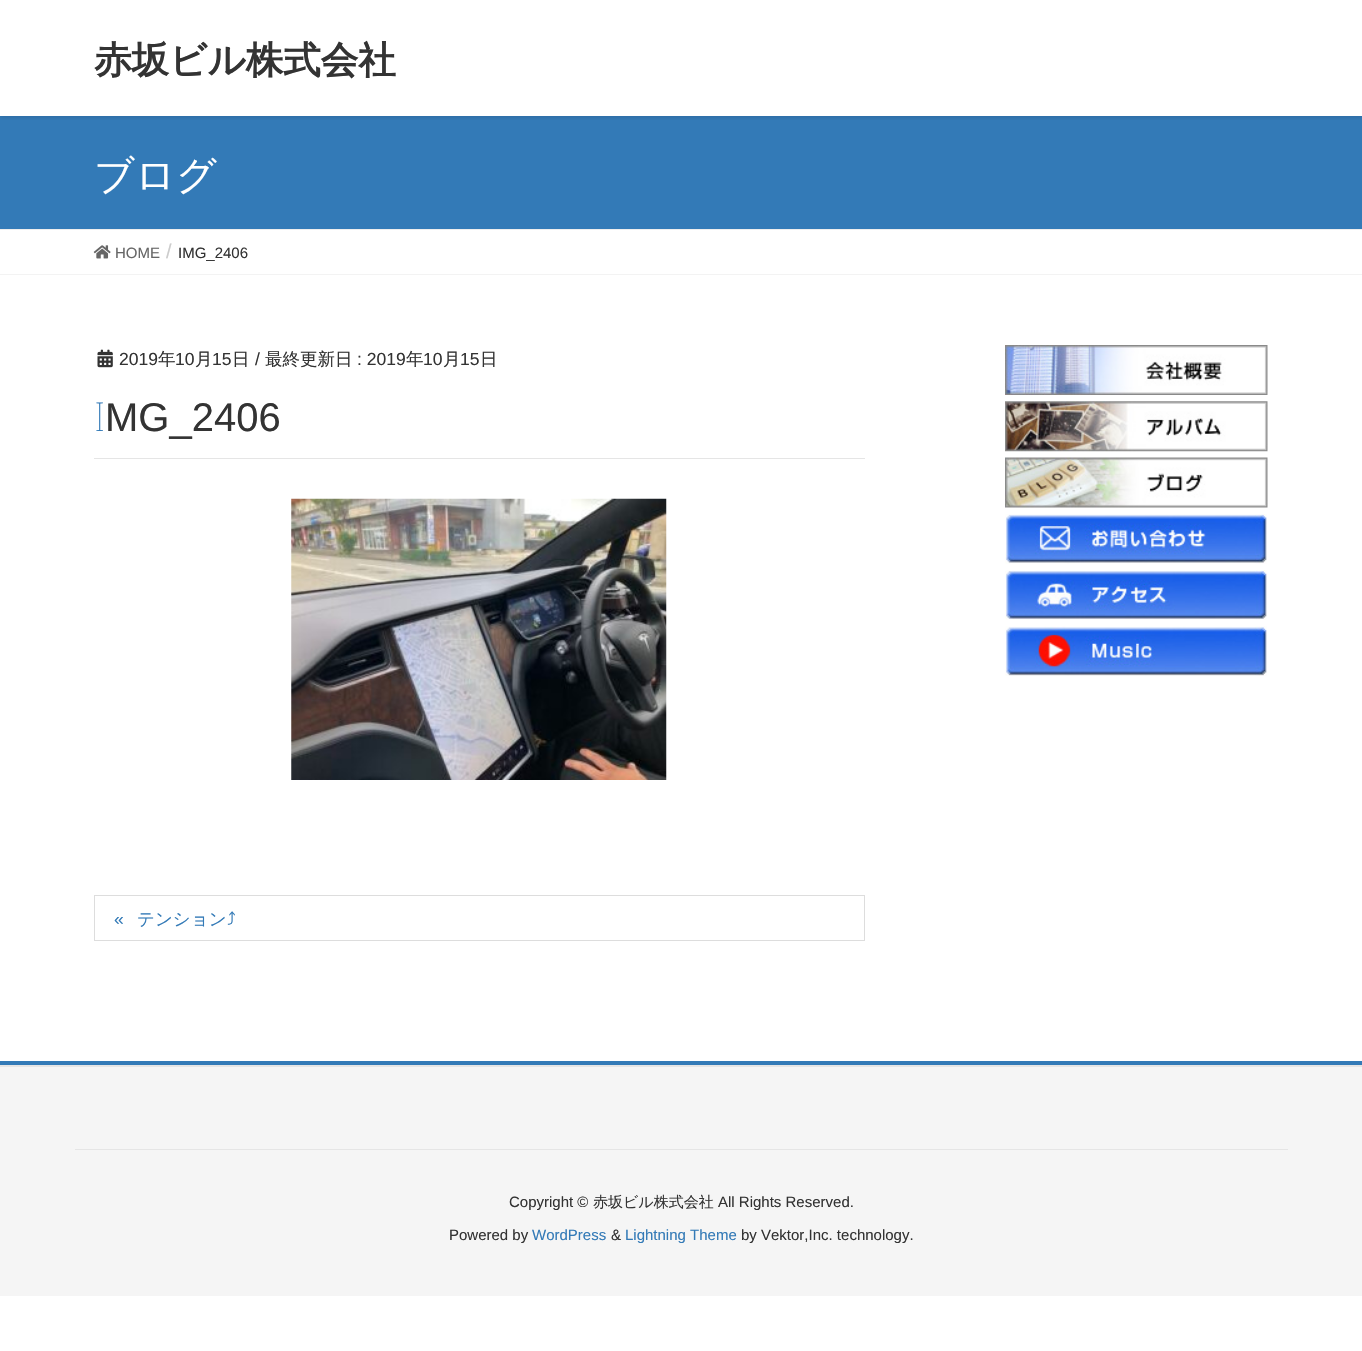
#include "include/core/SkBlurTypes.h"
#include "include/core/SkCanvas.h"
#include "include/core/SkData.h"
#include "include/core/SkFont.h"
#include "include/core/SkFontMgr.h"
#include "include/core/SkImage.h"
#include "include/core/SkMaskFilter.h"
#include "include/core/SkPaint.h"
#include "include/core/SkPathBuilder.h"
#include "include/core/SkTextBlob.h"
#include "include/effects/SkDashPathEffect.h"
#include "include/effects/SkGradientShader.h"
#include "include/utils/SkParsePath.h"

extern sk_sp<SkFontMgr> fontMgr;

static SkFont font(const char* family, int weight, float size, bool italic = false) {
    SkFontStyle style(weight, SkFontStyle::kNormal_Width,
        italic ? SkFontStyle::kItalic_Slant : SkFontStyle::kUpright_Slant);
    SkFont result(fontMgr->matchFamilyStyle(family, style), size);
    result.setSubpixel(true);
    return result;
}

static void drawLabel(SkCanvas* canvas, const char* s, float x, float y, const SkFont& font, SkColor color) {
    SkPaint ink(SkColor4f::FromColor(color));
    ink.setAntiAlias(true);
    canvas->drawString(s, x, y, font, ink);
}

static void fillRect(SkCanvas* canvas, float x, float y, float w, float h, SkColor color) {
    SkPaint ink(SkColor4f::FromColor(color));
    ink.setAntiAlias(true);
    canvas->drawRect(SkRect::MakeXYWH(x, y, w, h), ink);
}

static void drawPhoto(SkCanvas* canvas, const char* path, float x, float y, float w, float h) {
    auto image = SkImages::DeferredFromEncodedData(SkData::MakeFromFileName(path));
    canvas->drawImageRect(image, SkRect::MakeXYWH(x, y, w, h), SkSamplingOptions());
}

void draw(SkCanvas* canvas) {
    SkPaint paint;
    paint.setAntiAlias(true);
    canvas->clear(0xFFFFFFFF);
    fillRect(canvas, 0, 116, 1362, 113, 0xFF337AB7);
    canvas->save();
    canvas->clipRect(SkRect::MakeXYWH(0, 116, 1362, 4));
    paint.setColor(0x1A000000);
    paint.setMaskFilter(SkMaskFilter::MakeBlur(kNormal_SkBlurStyle, 2));
    canvas->drawRect(SkRect::MakeXYWH(0, 1, 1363, 117), paint);
    paint.setMaskFilter(nullptr);
    canvas->restore();
    SkFont font1 = font("WenQuanYi Zen Hei", 700, 37.5f);
    drawLabel(canvas, "赤坂ビル株式会社", 94, 73, font1, 0xFF333333);
    fillRect(canvas, 0, 229, 1362, 1, 0xFFEEEEEE);
    SkFont font2 = font("WenQuanYi Zen Hei", 500, 40);
    drawLabel(canvas, "ブログ", 94, 189, font2, 0xFFFFFFFF);
    fillRect(canvas, 0, 274, 1362, 1, 0xFFF3F3F3);
    drawPhoto(canvas, "assets/img1.png", 93, 245, 18, 14);
    SkFont font3 = font("Liberation Sans", 400, 15);
    drawLabel(canvas, "HOME", 115, 258, font3, 0xFF666666);
    SkFont font4 = font("Liberation Sans", 400, 20);
    drawLabel(canvas, "/", 166, 258, font4, 0xFFCCCCCC);
    drawLabel(canvas, "IMG_2406", 178, 258, font3, 0xFF333333);
    fillRect(canvas, 94, 458, 771, 1, 0xFFE5E5E5);
    drawPhoto(canvas, "assets/img2.png", 97, 349, 16, 19);
    SkFont font5 = font("Liberation Sans", 400, 17.5f);
    drawLabel(canvas, "2019", 119, 365, font5, 0xFF333333);
    SkFont font6 = font("WenQuanYi Zen Hei", 500, 17.5f);
    drawLabel(canvas, "年", 158, 365, font6, 0xFF333333);
    drawLabel(canvas, "10", 175, 365, font5, 0xFF333333);
    drawLabel(canvas, "月", 195, 365, font6, 0xFF333333);
    drawLabel(canvas, "15", 212, 365, font5, 0xFF333333);
    drawLabel(canvas, "日", 232, 365, font6, 0xFF333333);
    drawLabel(canvas, "/", 255, 365, font5, 0xFF333333);
    drawLabel(canvas, "最終更新日", 265, 365, font6, 0xFF333333);
    drawLabel(canvas, ": 2019", 357, 365, font5, 0xFF333333);
    drawLabel(canvas, "年", 406, 365, font6, 0xFF333333);
    drawLabel(canvas, "10", 423, 365, font5, 0xFF333333);
    drawLabel(canvas, "月", 443, 365, font6, 0xFF333333);
    drawLabel(canvas, "15", 460, 365, font5, 0xFF333333);
    drawLabel(canvas, "日", 480, 365, font6, 0xFF333333);
    SkFont font7 = font("Noto Sans", 100, 40);
    drawLabel(canvas, "I", 94, 431, font7, 0xFF337AB7);
    SkFont font8 = font("Liberation Sans", 400, 40);
    drawLabel(canvas, "MG_2406", 105, 431, font8, 0xFF333333);
    drawPhoto(canvas, "assets/img3.png", 291, 498, 376, 282);
    paint.setStroke(true);
    paint.setStrokeWidth(1);
    paint.setColor(0xFFDDDDDD);
    canvas->drawRect(SkRect::MakeXYWH(94.5f, 895.5f, 770, 45), paint);
    drawLabel(canvas, "«", 114, 925, font5, 0xFF337AB7);
    drawLabel(canvas, "テンション", 137, 925, font6, 0xFF337AB7);
    SkFont font9 = font("IPAPGothic", 400, 17.5f);
    drawLabel(canvas, "⤴", 227, 925, font9, 0xFF337AB7);
    drawPhoto(canvas, "assets/img4.png", 1005, 345, 263, 50);
    drawPhoto(canvas, "assets/img5.png", 1005, 401, 263, 51);
    drawPhoto(canvas, "assets/img6.png", 1005, 457, 263, 51);
    drawPhoto(canvas, "assets/img7.png", 1005, 514, 262, 50);
    drawPhoto(canvas, "assets/img8.png", 1005, 570, 262, 50);
    drawPhoto(canvas, "assets/img9.png", 1005, 626, 262, 50);
    fillRect(canvas, 0, 1067, 1362, 229, 0xFFF5F5F5);
    fillRect(canvas, 0, 1061, 1362, 4, 0xFF337AB7);
    fillRect(canvas, 0, 1065, 1362, 2, 0xFFE5E5E5);
    fillRect(canvas, 75, 1149, 1213, 1, 0xFFE5E5E5);
    drawLabel(canvas, "Copyright ©", 509, 1207, font3, 0xFF333333);
    SkFont font10 = font("WenQuanYi Zen Hei", 500, 15);
    drawLabel(canvas, "赤坂ビル株式会社", 593, 1207, font10, 0xFF333333);
    drawLabel(canvas, "All Rights Reserved.", 718, 1207, font3, 0xFF333333);
    drawLabel(canvas, "Powered by", 449, 1240, font3, 0xFF333333);
    drawLabel(canvas, "WordPress", 532, 1240, font3, 0xFF337AB7);
    drawLabel(canvas, "&", 611, 1240, font3, 0xFF333333);
    drawLabel(canvas, "Lightning Theme", 625, 1240, font3, 0xFF337AB7);
    drawLabel(canvas, "by Vektor,Inc. technology.", 741, 1240, font3, 0xFF333333);
}
